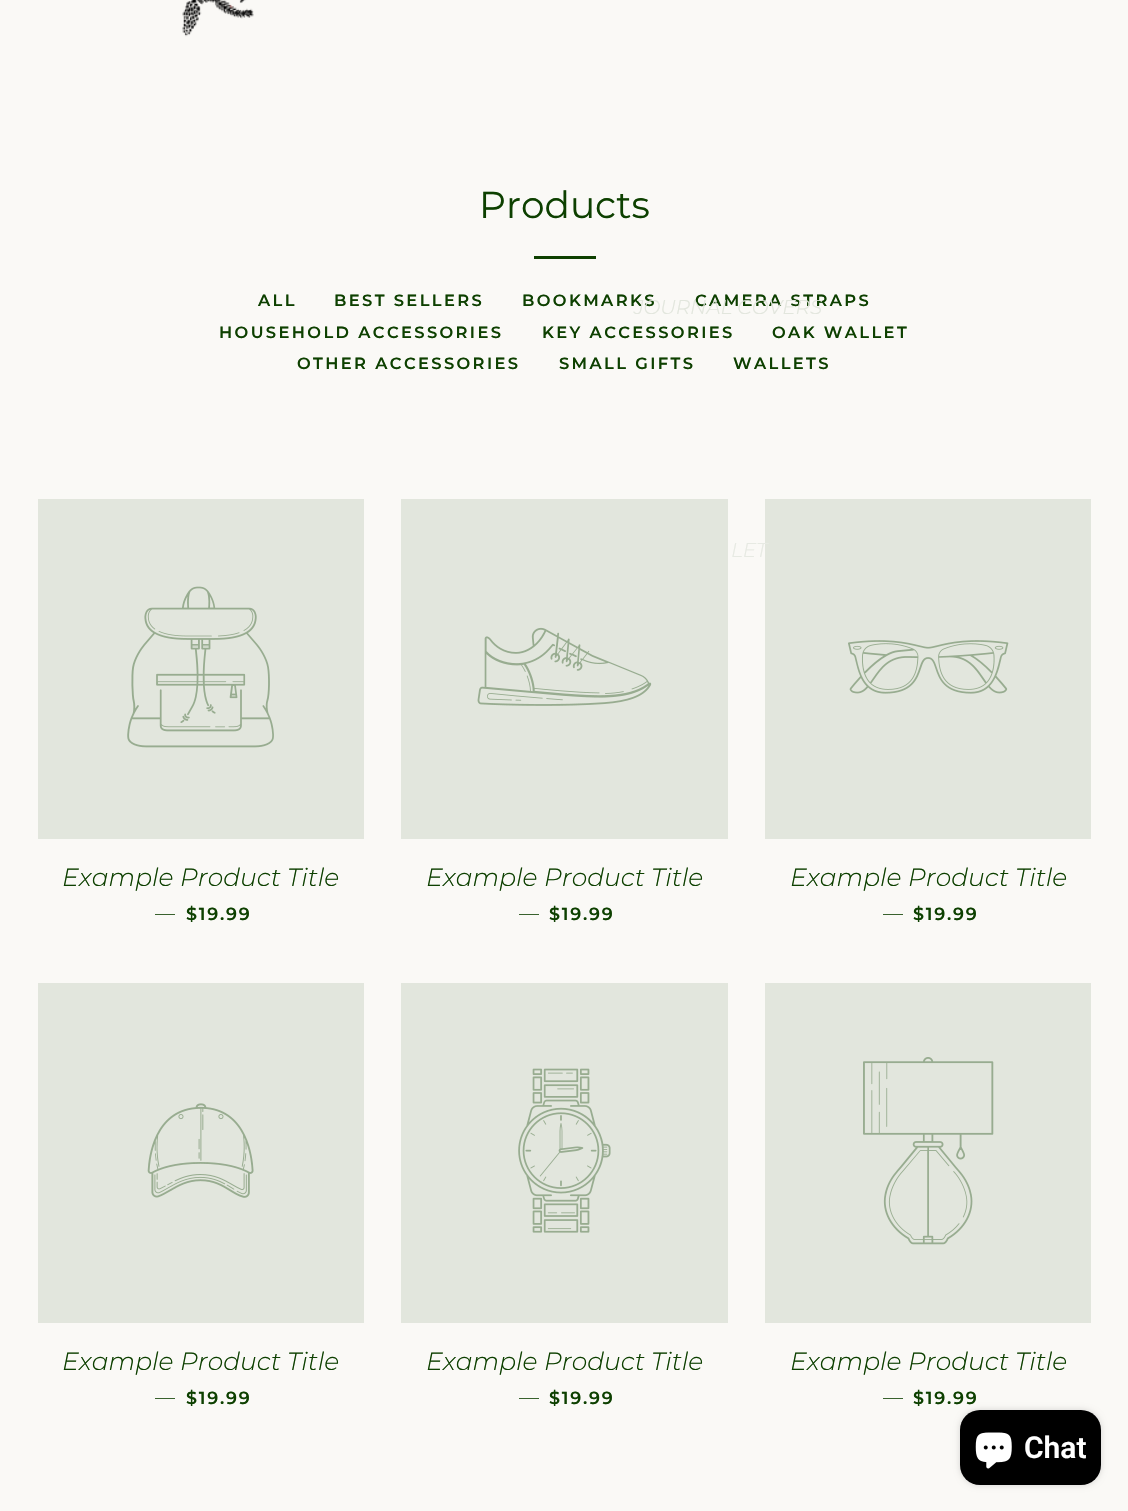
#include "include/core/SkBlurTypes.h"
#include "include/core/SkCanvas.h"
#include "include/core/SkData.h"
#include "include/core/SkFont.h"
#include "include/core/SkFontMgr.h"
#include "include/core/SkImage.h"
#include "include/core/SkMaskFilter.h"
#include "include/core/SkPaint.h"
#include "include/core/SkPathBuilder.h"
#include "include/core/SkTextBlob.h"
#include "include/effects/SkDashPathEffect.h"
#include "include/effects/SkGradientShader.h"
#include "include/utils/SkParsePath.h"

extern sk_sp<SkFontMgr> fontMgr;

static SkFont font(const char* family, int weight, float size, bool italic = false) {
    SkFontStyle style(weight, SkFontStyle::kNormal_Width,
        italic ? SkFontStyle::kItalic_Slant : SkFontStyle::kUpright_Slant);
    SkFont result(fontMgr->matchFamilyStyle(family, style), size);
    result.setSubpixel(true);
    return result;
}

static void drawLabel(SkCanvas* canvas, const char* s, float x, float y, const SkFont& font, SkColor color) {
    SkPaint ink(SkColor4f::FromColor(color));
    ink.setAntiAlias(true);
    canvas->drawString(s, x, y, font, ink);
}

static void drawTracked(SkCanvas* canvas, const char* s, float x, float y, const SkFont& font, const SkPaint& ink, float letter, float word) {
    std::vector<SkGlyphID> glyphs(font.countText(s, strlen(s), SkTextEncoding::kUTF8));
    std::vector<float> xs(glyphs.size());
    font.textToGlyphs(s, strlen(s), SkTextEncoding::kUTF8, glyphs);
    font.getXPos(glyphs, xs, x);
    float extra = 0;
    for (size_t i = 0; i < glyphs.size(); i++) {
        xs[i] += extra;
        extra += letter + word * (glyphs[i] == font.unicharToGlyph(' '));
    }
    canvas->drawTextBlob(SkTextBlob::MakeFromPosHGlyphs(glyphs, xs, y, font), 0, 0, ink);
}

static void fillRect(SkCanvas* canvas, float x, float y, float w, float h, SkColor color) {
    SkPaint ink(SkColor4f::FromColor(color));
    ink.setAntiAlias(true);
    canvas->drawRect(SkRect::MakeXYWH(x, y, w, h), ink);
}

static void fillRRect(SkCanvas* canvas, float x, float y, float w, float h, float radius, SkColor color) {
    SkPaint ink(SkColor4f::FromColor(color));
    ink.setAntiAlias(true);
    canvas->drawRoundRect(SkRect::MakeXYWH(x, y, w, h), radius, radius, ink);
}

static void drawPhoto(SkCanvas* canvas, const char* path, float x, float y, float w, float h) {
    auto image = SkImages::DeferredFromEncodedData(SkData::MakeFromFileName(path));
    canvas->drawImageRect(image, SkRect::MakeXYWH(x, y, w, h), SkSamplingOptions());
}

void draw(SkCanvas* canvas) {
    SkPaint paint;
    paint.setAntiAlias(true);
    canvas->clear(0xFFFAF9F6);
    SkFont font1 = font("Montserrat", 400, 37.5f);
    drawLabel(canvas, "Products", 479, 218, font1, 0xFF0D4000);
    fillRect(canvas, 534, 256, 62, 3, 0xFF0D4000);
    SkFont font2 = font("Montserrat", 600, 16.25f);
    paint.setColor(0xFF0D4000);
    drawTracked(canvas, "ALL", 258, 306, font2, paint, 2.4f, 0);
    drawTracked(canvas, "BEST SELLERS", 334, 306, font2, paint, 2.4f, 0);
    drawTracked(canvas, "BOOKMARKS", 522, 306, font2, paint, 2.4f, 0);
    drawTracked(canvas, "CAMERA STRAPS", 695, 306, font2, paint, 2.4f, 0);
    drawTracked(canvas, "HOUSEHOLD ACCESSORIES", 219, 338, font2, paint, 2.4f, 0);
    drawTracked(canvas, "KEY ACCESSORIES", 542, 338, font2, paint, 2.4f, 0);
    drawTracked(canvas, "OAK WALLET", 772, 338, font2, paint, 2.4f, 0);
    drawTracked(canvas, "OTHER ACCESSORIES", 297, 369, font2, paint, 2.4f, 0);
    drawTracked(canvas, "SMALL GIFTS", 559, 369, font2, paint, 2.4f, 0);
    drawTracked(canvas, "WALLETS", 733, 369, font2, paint, 2.4f, 0);
    fillRect(canvas, 38, 499, 326, 340, 0xFFE2E6DD);
    drawPhoto(canvas, "assets/img1.png", 127, 586, 147, 162);
    SkFont font3 = font("Montserrat", 300, 25, true);
    drawLabel(canvas, "Example Product Title", 62, 886, font3, 0xFF0D4000);
    SkFont font4 = font("Montserrat", 300, 20);
    drawLabel(canvas, "—", 155, 920, font4, 0xFF0D4000);
    SkFont font5 = font("Montserrat", 600, 17.5f);
    drawTracked(canvas, "$19.99", 186, 920, font5, paint, 1.75f, 0);
    fillRect(canvas, 401, 499, 327, 340, 0xFFE2E6DD);
    drawPhoto(canvas, "assets/img2.png", 477, 627, 175, 79);
    drawLabel(canvas, "Example Product Title", 426, 886, font3, 0xFF0D4000);
    drawLabel(canvas, "—", 519, 920, font4, 0xFF0D4000);
    drawTracked(canvas, "$19.99", 549, 920, font5, paint, 1.75f, 0);
    fillRect(canvas, 765, 499, 326, 340, 0xFFE2E6DD);
    drawPhoto(canvas, "assets/img3.png", 848, 640, 161, 54);
    drawLabel(canvas, "Example Product Title", 790, 886, font3, 0xFF0D4000);
    drawLabel(canvas, "—", 883, 920, font4, 0xFF0D4000);
    drawTracked(canvas, "$19.99", 913, 920, font5, paint, 1.75f, 0);
    fillRect(canvas, 38, 983, 326, 340, 0xFFE2E6DD);
    drawPhoto(canvas, "assets/img4.png", 147, 1103, 107, 95);
    drawLabel(canvas, "Example Product Title", 62, 1370, font3, 0xFF0D4000);
    drawLabel(canvas, "—", 155, 1404, font4, 0xFF0D4000);
    drawTracked(canvas, "$19.99", 186, 1404, font5, paint, 1.75f, 0);
    fillRect(canvas, 401, 983, 327, 340, 0xFFE2E6DD);
    drawPhoto(canvas, "assets/img5.png", 518, 1068, 93, 165);
    drawLabel(canvas, "Example Product Title", 426, 1370, font3, 0xFF0D4000);
    drawLabel(canvas, "—", 519, 1404, font4, 0xFF0D4000);
    drawTracked(canvas, "$19.99", 549, 1404, font5, paint, 1.75f, 0);
    fillRect(canvas, 765, 983, 326, 340, 0xFFE2E6DD);
    drawPhoto(canvas, "assets/img6.png", 863, 1057, 131, 188);
    drawLabel(canvas, "Example Product Title", 790, 1370, font3, 0xFF0D4000);
    drawLabel(canvas, "—", 883, 1404, font4, 0xFF0D4000);
    drawTracked(canvas, "$19.99", 913, 1404, font5, paint, 1.75f, 0);
    drawPhoto(canvas, "assets/img7.png", 182, 0, 72, 37);
    SkFont font6 = font("Montserrat", 300, 20, true);
    drawLabel(canvas, "JOURNAL COVERS", 634, 314, font6, 0xFFE2E6DD);
    drawLabel(canvas, "LET", 731, 557, font6, 0xFFE7EAE3);
    paint.setColor(0x26000000);
    paint.setMaskFilter(SkMaskFilter::MakeBlur(kNormal_SkBlurStyle, 3));
    canvas->drawRoundRect(SkRect::MakeXYWH(960, 1410, 141, 75), 20, 20, paint);
    paint.setMaskFilter(nullptr);
    fillRRect(canvas, 960, 1410, 141, 75, 20, 0xFF000000);
    drawPhoto(canvas, "assets/img8.png", 975, 1432, 37, 37);
    SkFont font7 = font("Roboto", 600, 30);
    drawLabel(canvas, "Chat", 1024, 1458, font7, 0xFFFFFFFF);
}
